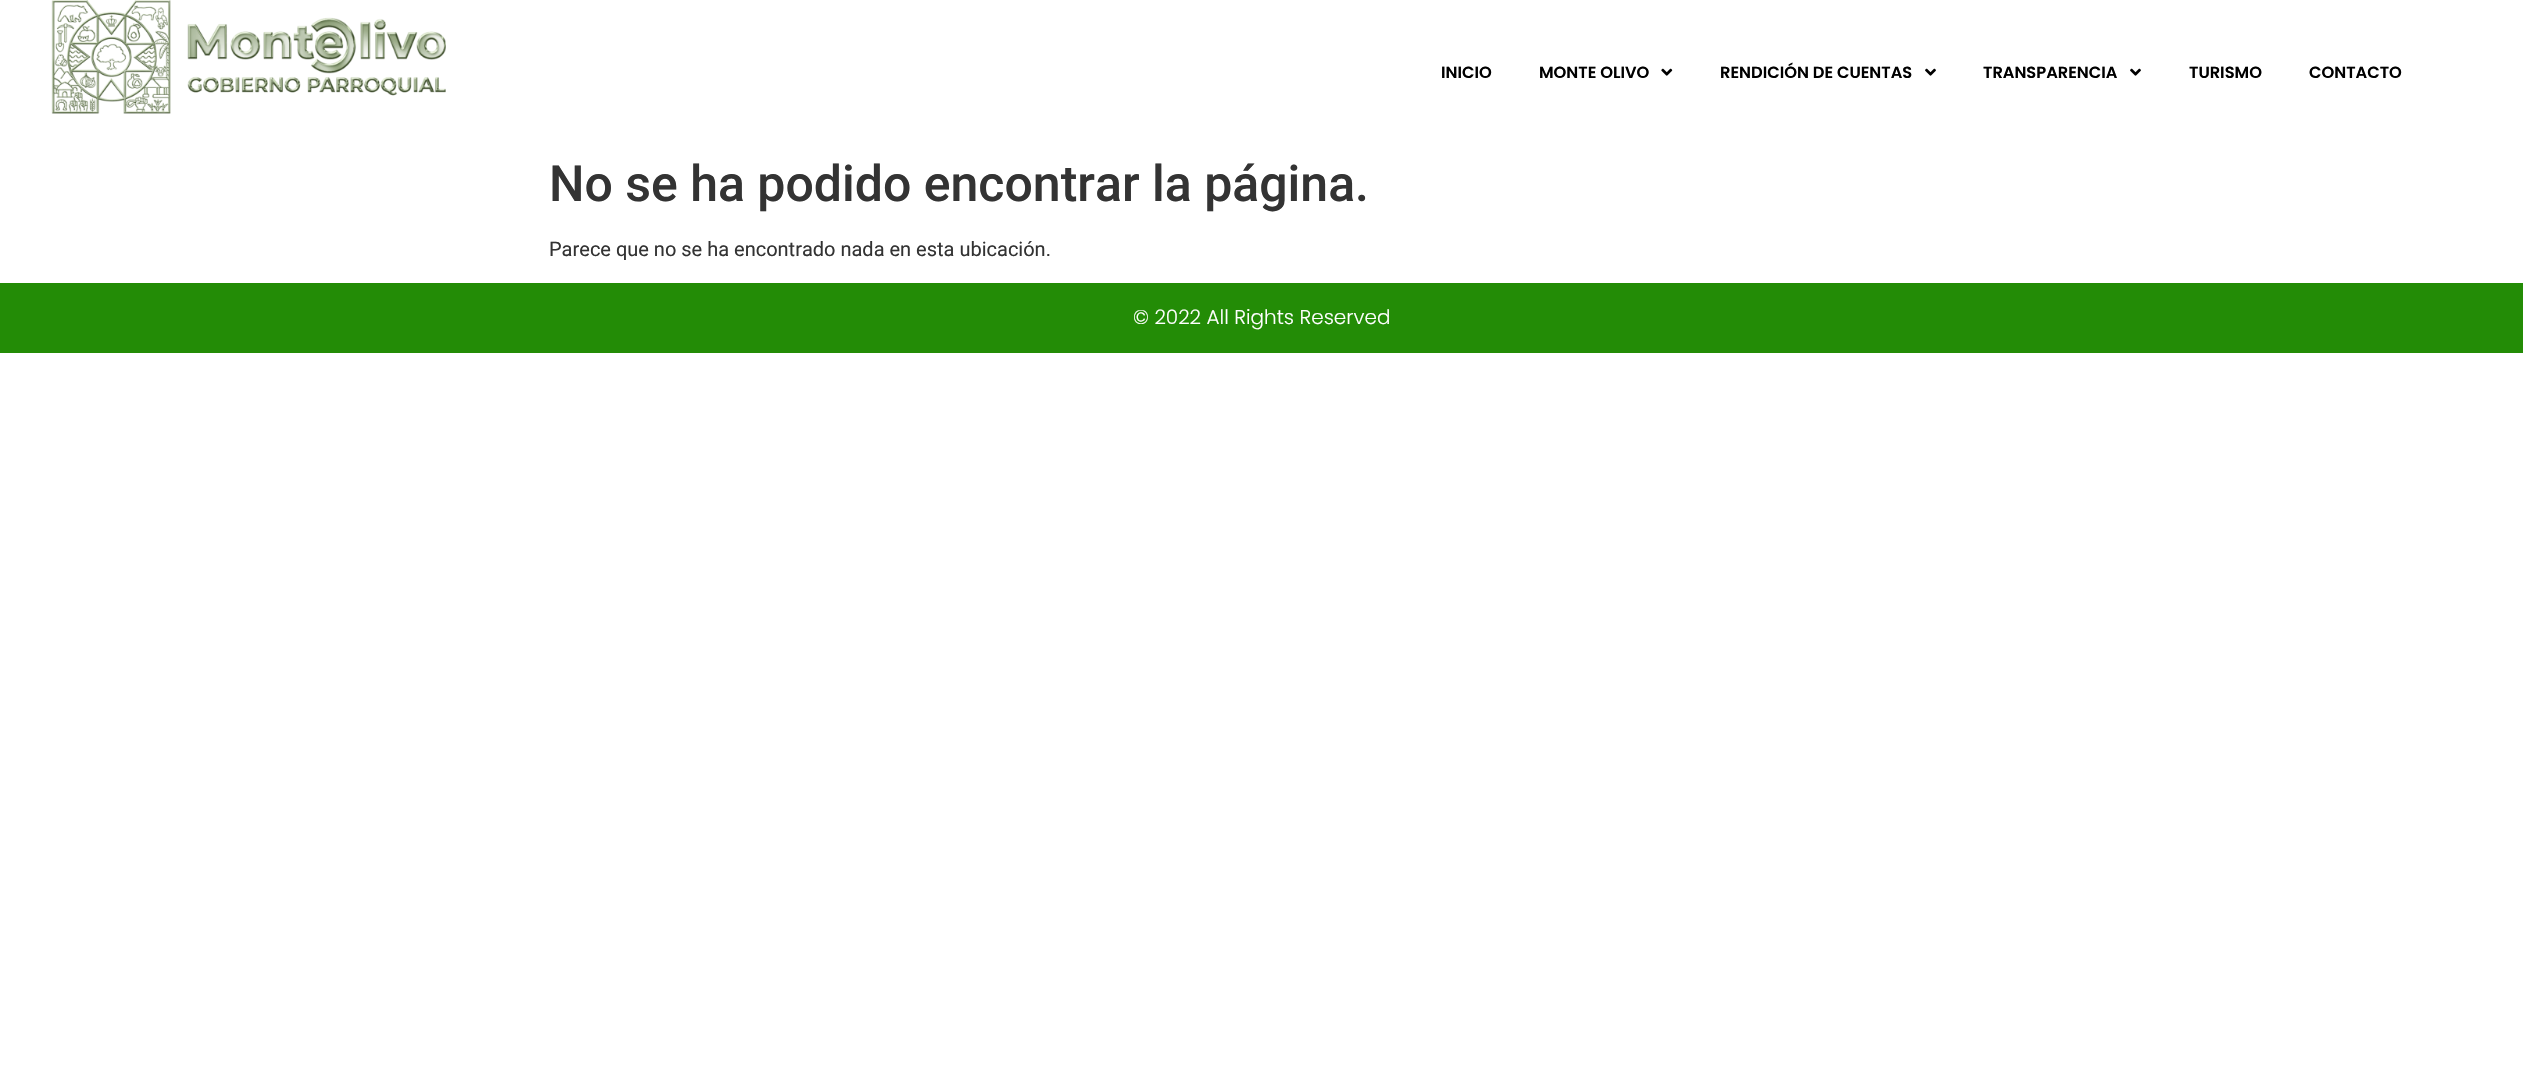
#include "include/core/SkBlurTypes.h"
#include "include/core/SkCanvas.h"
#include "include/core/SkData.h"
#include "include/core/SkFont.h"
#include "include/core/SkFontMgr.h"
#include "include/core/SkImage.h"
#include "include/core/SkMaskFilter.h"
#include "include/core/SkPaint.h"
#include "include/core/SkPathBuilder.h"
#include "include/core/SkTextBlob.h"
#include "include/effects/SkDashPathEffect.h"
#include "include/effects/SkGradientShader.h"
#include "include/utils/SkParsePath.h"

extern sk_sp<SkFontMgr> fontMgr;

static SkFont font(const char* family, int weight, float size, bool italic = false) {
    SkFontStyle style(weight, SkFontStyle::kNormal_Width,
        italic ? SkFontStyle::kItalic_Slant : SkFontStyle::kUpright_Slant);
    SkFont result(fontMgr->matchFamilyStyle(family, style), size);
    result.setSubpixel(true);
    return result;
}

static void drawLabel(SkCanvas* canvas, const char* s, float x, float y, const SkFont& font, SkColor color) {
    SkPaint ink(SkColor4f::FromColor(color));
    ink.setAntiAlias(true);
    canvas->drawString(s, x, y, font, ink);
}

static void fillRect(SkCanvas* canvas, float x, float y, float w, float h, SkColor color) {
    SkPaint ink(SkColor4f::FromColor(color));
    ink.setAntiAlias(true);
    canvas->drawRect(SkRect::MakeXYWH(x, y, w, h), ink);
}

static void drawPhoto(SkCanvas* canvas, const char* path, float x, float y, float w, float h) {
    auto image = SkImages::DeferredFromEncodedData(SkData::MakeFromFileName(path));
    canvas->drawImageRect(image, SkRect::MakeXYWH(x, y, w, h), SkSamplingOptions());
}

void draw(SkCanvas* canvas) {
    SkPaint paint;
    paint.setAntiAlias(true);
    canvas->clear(0xFFFFFFFF);
    drawPhoto(canvas, "assets/img1.png", 51, 0, 395, 114);
    SkFont font1 = font("Poppins", 600, 16.25f);
    drawLabel(canvas, "INICIO", 1441, 78, font1, 0xFF000000);
    drawLabel(canvas, "MONTE OLIVO", 1539, 78, font1, 0xFF000000);
    drawPhoto(canvas, "assets/img2.png", 1661, 68, 12, 8);
    drawLabel(canvas, "RENDICIÓN DE CUENTAS", 1720, 78, font1, 0xFF000000);
    drawPhoto(canvas, "assets/img3.png", 1925, 68, 11, 8);
    drawLabel(canvas, "TRANSPARENCIA", 1983, 78, font1, 0xFF000000);
    drawPhoto(canvas, "assets/img3.png", 2130, 68, 11, 8);
    drawLabel(canvas, "TURISMO", 2189, 78, font1, 0xFF000000);
    drawLabel(canvas, "CONTACTO", 2309, 78, font1, 0xFF000000);
    SkFont font2 = font("Roboto", 500, 50);
    drawLabel(canvas, "No se ha podido encontrar la página.", 549, 201, font2, 0xFF333333);
    SkFont font3 = font("Roboto", 400, 20);
    drawLabel(canvas, "Parece que no se ha encontrado nada en esta ubicación.", 549, 256, font3, 0xFF333333);
    fillRect(canvas, 0, 283, 2523, 70, 0xFF238C06);
    SkFont font4 = font("Poppins", 300, 20);
    drawLabel(canvas, "© 2022 All Rights Reserved", 1133, 324, font4, 0xFFFFFFFF);
}
